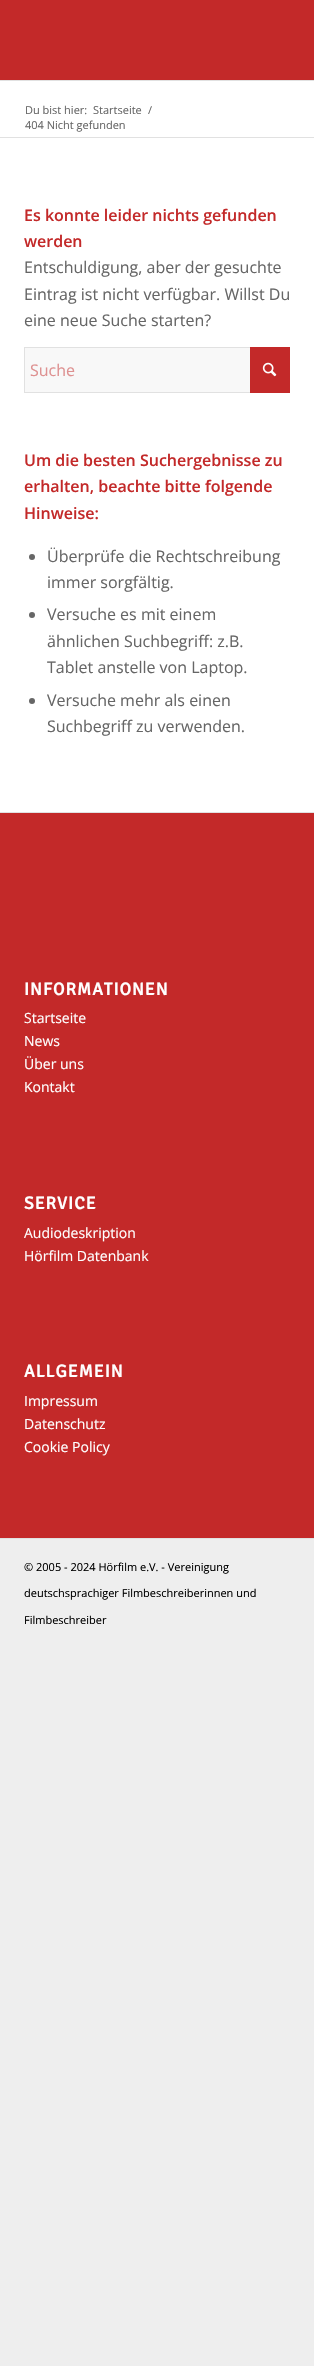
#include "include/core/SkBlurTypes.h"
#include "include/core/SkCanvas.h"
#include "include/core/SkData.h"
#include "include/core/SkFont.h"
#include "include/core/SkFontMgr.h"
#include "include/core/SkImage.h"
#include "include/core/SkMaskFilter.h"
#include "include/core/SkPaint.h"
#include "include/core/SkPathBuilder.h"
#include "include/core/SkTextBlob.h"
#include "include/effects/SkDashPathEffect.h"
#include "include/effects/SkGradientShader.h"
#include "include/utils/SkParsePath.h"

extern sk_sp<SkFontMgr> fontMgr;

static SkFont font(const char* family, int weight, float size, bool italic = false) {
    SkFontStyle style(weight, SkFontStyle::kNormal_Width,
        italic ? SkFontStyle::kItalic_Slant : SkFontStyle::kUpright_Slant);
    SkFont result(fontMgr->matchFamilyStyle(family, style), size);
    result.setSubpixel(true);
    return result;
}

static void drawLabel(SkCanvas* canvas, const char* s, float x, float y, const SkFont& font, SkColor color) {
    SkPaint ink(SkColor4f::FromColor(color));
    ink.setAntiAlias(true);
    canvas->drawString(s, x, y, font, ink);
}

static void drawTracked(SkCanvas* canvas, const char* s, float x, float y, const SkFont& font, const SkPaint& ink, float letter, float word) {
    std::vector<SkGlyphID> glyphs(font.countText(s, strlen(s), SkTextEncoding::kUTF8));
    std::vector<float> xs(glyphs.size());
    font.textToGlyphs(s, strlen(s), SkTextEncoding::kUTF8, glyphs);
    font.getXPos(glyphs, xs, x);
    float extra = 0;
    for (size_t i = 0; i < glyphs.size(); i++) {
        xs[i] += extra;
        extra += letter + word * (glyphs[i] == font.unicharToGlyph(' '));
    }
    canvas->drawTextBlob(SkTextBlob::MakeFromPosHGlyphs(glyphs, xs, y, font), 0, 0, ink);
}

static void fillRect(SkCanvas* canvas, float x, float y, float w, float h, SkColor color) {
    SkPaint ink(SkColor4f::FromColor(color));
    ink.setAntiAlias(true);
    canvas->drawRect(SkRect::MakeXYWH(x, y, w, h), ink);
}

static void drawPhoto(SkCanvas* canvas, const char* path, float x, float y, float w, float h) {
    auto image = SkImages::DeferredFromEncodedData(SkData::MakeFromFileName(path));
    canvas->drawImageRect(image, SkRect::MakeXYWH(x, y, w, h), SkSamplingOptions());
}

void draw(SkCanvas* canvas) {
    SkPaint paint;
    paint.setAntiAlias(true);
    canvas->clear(0xFFEEEEEE);
    fillRect(canvas, 0, 0, 314, 80, 0xFFC32929);
    fillRect(canvas, 0, 80, 314, 1, 0xFFE1E1E1);
    fillRect(canvas, 0, 813, 314, 725, 0xFFC32929);
    fillRect(canvas, 0, 81, 314, 56, 0xFFFFFFFF);
    SkFont font1 = font("Open Sans", 400, 11);
    drawLabel(canvas, "Du bist hier:", 25, 114, font1, 0xFF666666);
    drawLabel(canvas, "Startseite", 93, 114, font1, 0xFF666666);
    drawLabel(canvas, "/", 148, 114, font1, 0xFF666666);
    drawLabel(canvas, "404 Nicht gefunden", 25, 129, font1, 0xFF666666);
    fillRect(canvas, 0, 138, 314, 674, 0xFFFFFFFF);
    fillRect(canvas, 0, 137, 314, 1, 0xFFE1E1E1);
    SkFont font2 = font("Open Sans", 600, 16);
    drawLabel(canvas, "Es konnte leider nichts gefunden", 24, 221, font2, 0xFFC32929);
    drawLabel(canvas, "werden", 24, 247, font2, 0xFFC32929);
    SkFont font3 = font("Open Sans", 400, 16);
    drawLabel(canvas, "Entschuldigung, aber der gesuchte", 24, 273, font3, 0xFF666666);
    drawLabel(canvas, "Eintrag ist nicht verfügbar. Willst Du", 24, 300, font3, 0xFF666666);
    drawLabel(canvas, "eine neue Suche starten?", 24, 326, font3, 0xFF666666);
    fillRect(canvas, 25, 348, 225, 44, 0xFFF8F8F8);
    paint.setStroke(true);
    paint.setStrokeWidth(1);
    paint.setColor(0xFFE1E1E1);
    canvas->drawRect(SkRect::MakeXYWH(24.5f, 347.5f, 265, 45), paint);
    fillRect(canvas, 250, 347, 40, 46, 0xFFC32929);
    drawLabel(canvas, "Suche", 30, 376, font3, 0xFFDE9191);
    drawPhoto(canvas, "assets/img1.png", 262, 362, 15, 15);
    drawLabel(canvas, "Um die besten Suchergebnisse zu", 24, 466, font2, 0xFFC32929);
    drawLabel(canvas, "erhalten, beachte bitte folgende", 24, 492, font2, 0xFFC32929);
    drawLabel(canvas, "Hinweise:", 24, 519, font2, 0xFFC32929);
    paint.setStroke(false);
    paint.setColor(0xFF666666);
    canvas->drawCircle(32, 557, 3, paint);
    drawLabel(canvas, "Überprüfe die Rechtschreibung", 47, 562, font3, 0xFF666666);
    drawLabel(canvas, "immer sorgfältig.", 47, 588, font3, 0xFF666666);
    canvas->drawCircle(32, 615, 3, paint);
    drawLabel(canvas, "Versuche es mit einem", 47, 620, font3, 0xFF666666);
    drawLabel(canvas, "ähnlichen Suchbegriff: z.B.", 47, 647, font3, 0xFF666666);
    drawLabel(canvas, "Tablet anstelle von Laptop.", 47, 673, font3, 0xFF666666);
    canvas->drawCircle(32, 701, 3, paint);
    drawLabel(canvas, "Versuche mehr als einen", 47, 706, font3, 0xFF666666);
    drawLabel(canvas, "Suchbegriff zu verwenden.", 47, 732, font3, 0xFF666666);
    fillRect(canvas, 0, 812, 314, 1, 0xFFE1E1E1);
    SkFont font4 = font("Signika Negative", 700, 17.5f);
    paint.setColor(0xFFFFFFFF);
    drawTracked(canvas, "INFORMATIONEN", 24, 995, font4, paint, 1, 0);
    SkFont font5 = font("Open Sans", 400, 14);
    drawLabel(canvas, "Startseite", 24, 1023, font5, 0xFFFFFFFF);
    drawLabel(canvas, "News", 24, 1046, font5, 0xFFFFFFFF);
    drawLabel(canvas, "Über uns", 24, 1069, font5, 0xFFFFFFFF);
    drawLabel(canvas, "Kontakt", 24, 1092, font5, 0xFFFFFFFF);
    drawTracked(canvas, "SERVICE", 24, 1209, font4, paint, 1, 0);
    drawLabel(canvas, "Audiodeskription", 24, 1238, font5, 0xFFFFFFFF);
    drawLabel(canvas, "Hörfilm Datenbank", 24, 1261, font5, 0xFFFFFFFF);
    drawTracked(canvas, "ALLGEMEIN", 24, 1377, font4, paint, 1, 0);
    drawLabel(canvas, "Impressum", 24, 1406, font5, 0xFFFFFFFF);
    drawLabel(canvas, "Datenschutz", 24, 1429, font5, 0xFFFFFFFF);
    drawLabel(canvas, "Cookie Policy", 24, 1452, font5, 0xFFFFFFFF);
    fillRect(canvas, 0, 1538, 314, 1, 0xFFE1E1E1);
    drawLabel(canvas, "© 2005 - 2024 Hörfilm e.V. - Vereinigung", 24, 1571, font1, 0xFF000000);
    drawLabel(canvas, "deutschsprachiger Filmbeschreiberinnen und", 24, 1597, font1, 0xFF000000);
    drawLabel(canvas, "Filmbeschreiber", 24, 1624, font1, 0xFF000000);
}
